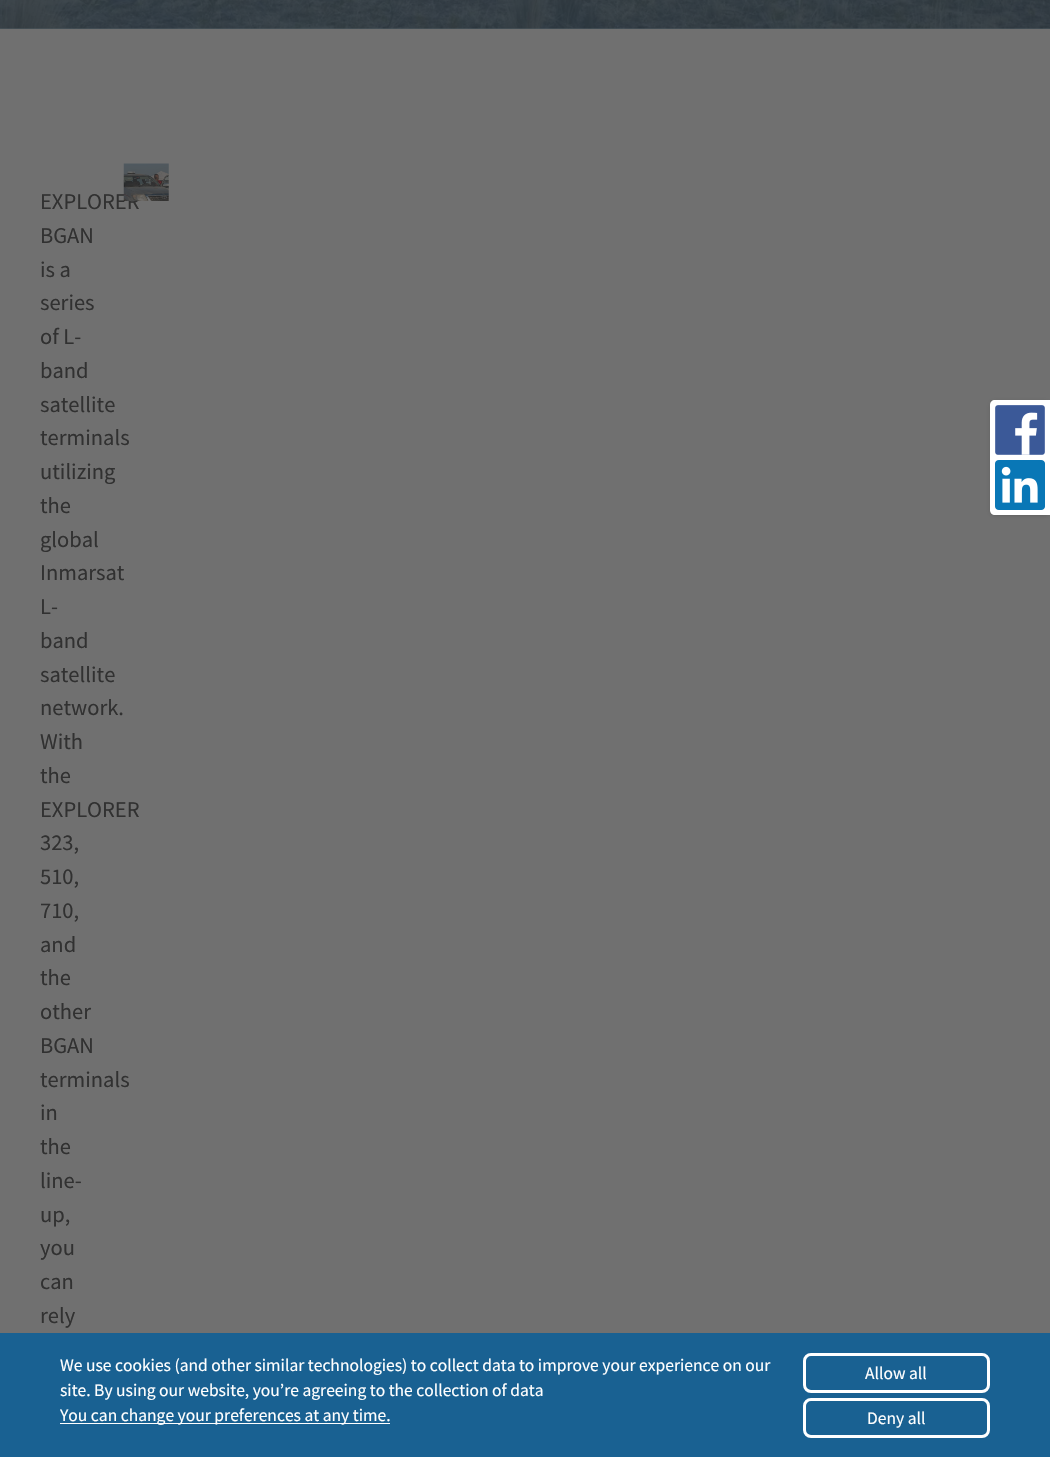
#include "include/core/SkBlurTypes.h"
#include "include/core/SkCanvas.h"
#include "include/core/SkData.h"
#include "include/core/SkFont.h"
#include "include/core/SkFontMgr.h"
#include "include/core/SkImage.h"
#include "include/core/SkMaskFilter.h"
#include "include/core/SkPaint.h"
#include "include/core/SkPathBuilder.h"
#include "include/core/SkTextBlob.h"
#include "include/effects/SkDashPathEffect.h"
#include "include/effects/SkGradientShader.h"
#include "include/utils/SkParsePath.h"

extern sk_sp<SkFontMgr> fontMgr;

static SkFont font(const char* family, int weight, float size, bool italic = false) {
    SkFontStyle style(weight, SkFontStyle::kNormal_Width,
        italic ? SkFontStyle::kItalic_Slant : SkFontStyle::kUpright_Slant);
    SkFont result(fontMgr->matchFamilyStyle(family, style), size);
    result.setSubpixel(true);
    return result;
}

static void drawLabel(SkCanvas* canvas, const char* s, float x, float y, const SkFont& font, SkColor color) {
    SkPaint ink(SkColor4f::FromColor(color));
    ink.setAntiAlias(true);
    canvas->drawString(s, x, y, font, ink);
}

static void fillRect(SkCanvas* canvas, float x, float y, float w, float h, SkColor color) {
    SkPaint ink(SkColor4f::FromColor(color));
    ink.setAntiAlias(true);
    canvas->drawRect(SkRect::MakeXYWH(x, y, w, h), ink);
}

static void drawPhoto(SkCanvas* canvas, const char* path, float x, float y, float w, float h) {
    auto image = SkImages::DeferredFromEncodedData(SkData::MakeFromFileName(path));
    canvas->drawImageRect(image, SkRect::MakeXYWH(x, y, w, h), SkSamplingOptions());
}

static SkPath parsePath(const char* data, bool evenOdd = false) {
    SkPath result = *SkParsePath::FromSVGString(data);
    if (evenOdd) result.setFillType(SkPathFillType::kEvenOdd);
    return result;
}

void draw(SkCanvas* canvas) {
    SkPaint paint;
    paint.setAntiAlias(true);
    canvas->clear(0xFF707070);
    fillRect(canvas, 0, 28, 1050, 1, 0xFF4E5960);
    drawPhoto(canvas, "assets/img1.png", 0, 0, 1050, 29);
    SkFont font1 = font("Source Sans Pro", 400, 22.5f);
    drawLabel(canvas, "EXPLORER", 40, 209, font1, 0xFF313131);
    drawPhoto(canvas, "assets/img2.png", 123, 163, 46, 38);
    drawLabel(canvas, "BGAN", 40, 243, font1, 0xFF313131);
    drawLabel(canvas, "is a", 40, 277, font1, 0xFF313131);
    drawLabel(canvas, "series", 40, 310, font1, 0xFF313131);
    drawLabel(canvas, "of L-", 40, 344, font1, 0xFF313131);
    drawLabel(canvas, "band", 40, 378, font1, 0xFF313131);
    drawLabel(canvas, "satellite", 40, 412, font1, 0xFF313131);
    drawLabel(canvas, "terminals", 40, 445, font1, 0xFF313131);
    drawLabel(canvas, "utilizing", 40, 479, font1, 0xFF313131);
    drawLabel(canvas, "the", 40, 513, font1, 0xFF313131);
    drawLabel(canvas, "global", 40, 547, font1, 0xFF313131);
    drawLabel(canvas, "Inmarsat", 40, 580, font1, 0xFF313131);
    drawLabel(canvas, "L-", 40, 614, font1, 0xFF313131);
    drawLabel(canvas, "band", 40, 648, font1, 0xFF313131);
    drawLabel(canvas, "satellite", 40, 682, font1, 0xFF313131);
    drawLabel(canvas, "network.", 40, 715, font1, 0xFF313131);
    drawLabel(canvas, "With", 40, 749, font1, 0xFF313131);
    drawLabel(canvas, "the", 40, 783, font1, 0xFF313131);
    drawLabel(canvas, "EXPLORER", 40, 817, font1, 0xFF313131);
    drawLabel(canvas, "323,", 40, 850, font1, 0xFF313131);
    drawLabel(canvas, "510,", 40, 884, font1, 0xFF313131);
    drawLabel(canvas, "710,", 40, 918, font1, 0xFF313131);
    drawLabel(canvas, "and", 40, 952, font1, 0xFF313131);
    drawLabel(canvas, "the", 40, 985, font1, 0xFF313131);
    drawLabel(canvas, "other", 40, 1019, font1, 0xFF313131);
    drawLabel(canvas, "BGAN", 40, 1053, font1, 0xFF313131);
    drawLabel(canvas, "terminals", 40, 1087, font1, 0xFF313131);
    drawLabel(canvas, "in", 40, 1120, font1, 0xFF313131);
    drawLabel(canvas, "the", 40, 1154, font1, 0xFF313131);
    drawLabel(canvas, "line-", 40, 1188, font1, 0xFF313131);
    drawLabel(canvas, "up,", 40, 1222, font1, 0xFF313131);
    drawLabel(canvas, "you", 40, 1255, font1, 0xFF313131);
    drawLabel(canvas, "can", 40, 1289, font1, 0xFF313131);
    drawLabel(canvas, "rely", 40, 1323, font1, 0xFF313131);
    paint.setColor(0x1A000000);
    paint.setMaskFilter(SkMaskFilter::MakeBlur(kNormal_SkBlurStyle, 1));
    canvas->drawRoundRect(SkRect::MakeXYWH(991, 403, 58, 112), 4, 4, paint);
    paint.setMaskFilter(nullptr);
    paint.setMaskFilter(SkMaskFilter::MakeBlur(kNormal_SkBlurStyle, 2));
    canvas->drawRoundRect(SkRect::MakeXYWH(990, 401, 60, 115), 5, 5, paint);
    paint.setMaskFilter(nullptr);
    paint.setColor(0xFFFFFFFF);
    canvas->drawPath(parsePath("M995 400H1050V515H995C992 515 990 513 990 510V405C990 402 992 400 995 400Z"), paint);
    drawPhoto(canvas, "assets/img3.png", 995, 405, 50, 50);
    drawPhoto(canvas, "assets/img4.png", 995, 460, 50, 50);
    fillRect(canvas, 0, 1333, 1050, 124, 0xFF196192);
    SkFont font2 = font("Source Sans Pro", 400, 17.5f);
    drawLabel(canvas, "We use cookies (and other similar technologies) to collect data to improve your experience on our", 60, 1371, font2, 0xFFFFFFFF);
    drawLabel(canvas, "site. By using our website, you’re agreeing to the collection of data", 60, 1396, font2, 0xFFFFFFFF);
    fillRect(canvas, 60, 1423, 330, 1, 0xFFFFFFFF);
    drawLabel(canvas, "You can change your preferences at any time.", 60, 1421, font2, 0xFFFFFFFF);
    paint.setStroke(true);
    paint.setStrokeWidth(3);
    canvas->drawRoundRect(SkRect::MakeXYWH(804.5f, 1354.5f, 184, 37), 6.5f, 6.5f, paint);
    drawLabel(canvas, "Allow all", 865, 1379, font2, 0xFFFFFFFF);
    canvas->drawRoundRect(SkRect::MakeXYWH(804.5f, 1399.5f, 184, 37), 6.5f, 6.5f, paint);
    drawLabel(canvas, "Deny all", 867, 1424, font2, 0xFFFFFFFF);
}
